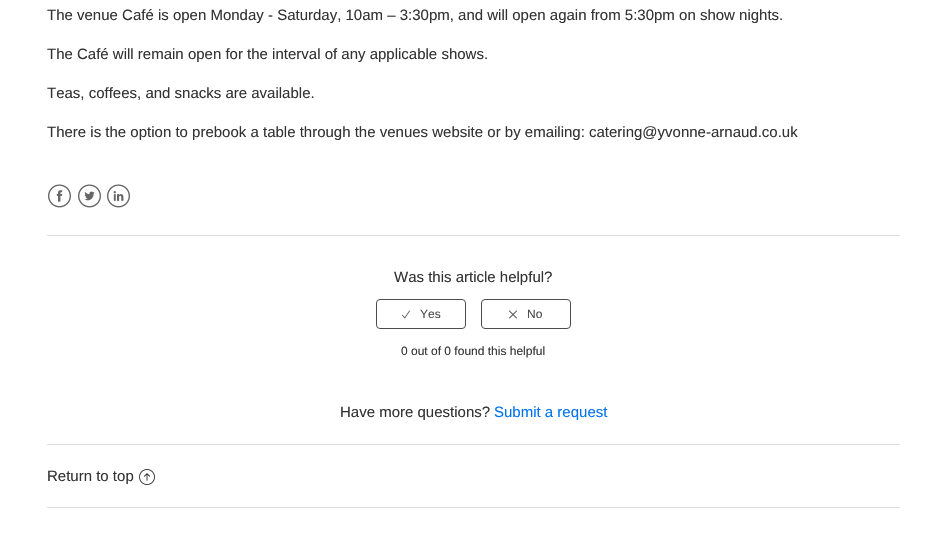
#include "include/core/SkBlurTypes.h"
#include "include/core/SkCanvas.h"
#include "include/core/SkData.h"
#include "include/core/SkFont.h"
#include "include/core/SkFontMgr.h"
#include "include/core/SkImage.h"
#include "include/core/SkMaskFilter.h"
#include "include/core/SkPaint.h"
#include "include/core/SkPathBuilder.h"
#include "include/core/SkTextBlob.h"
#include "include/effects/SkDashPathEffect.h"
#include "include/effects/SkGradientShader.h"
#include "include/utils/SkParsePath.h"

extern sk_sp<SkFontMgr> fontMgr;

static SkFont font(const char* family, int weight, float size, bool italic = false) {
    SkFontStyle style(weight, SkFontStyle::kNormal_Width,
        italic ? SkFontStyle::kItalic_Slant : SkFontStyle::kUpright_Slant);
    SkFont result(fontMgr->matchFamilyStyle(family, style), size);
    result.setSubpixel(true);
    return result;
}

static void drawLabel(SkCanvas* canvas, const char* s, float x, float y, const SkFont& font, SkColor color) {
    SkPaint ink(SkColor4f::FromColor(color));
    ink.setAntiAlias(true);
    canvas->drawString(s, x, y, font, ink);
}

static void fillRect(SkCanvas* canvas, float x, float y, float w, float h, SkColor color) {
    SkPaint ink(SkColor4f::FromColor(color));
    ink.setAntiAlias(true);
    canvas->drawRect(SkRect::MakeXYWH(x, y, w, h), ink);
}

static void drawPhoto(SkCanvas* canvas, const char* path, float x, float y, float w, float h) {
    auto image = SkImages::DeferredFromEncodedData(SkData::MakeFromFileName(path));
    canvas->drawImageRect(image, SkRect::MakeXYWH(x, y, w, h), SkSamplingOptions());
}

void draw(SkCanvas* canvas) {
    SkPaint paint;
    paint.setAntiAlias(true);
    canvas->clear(0xFFFFFFFF);
    SkFont font1 = font("Liberation Sans", 400, 15);
    drawLabel(canvas, "The venue Café is open Monday - Saturday, 10am – 3:30pm, and will open again from 5:30pm on show nights.", 47, 20, font1, 0xFF333333);
    drawLabel(canvas, "The Café will remain open for the interval of any applicable shows.", 47, 59, font1, 0xFF333333);
    drawLabel(canvas, "Teas, coffees, and snacks are available.", 47, 98, font1, 0xFF333333);
    drawLabel(canvas, "There is the option to prebook a table through the venues website or by emailing: catering@yvonne-arnaud.co.uk", 47, 137, font1, 0xFF333333);
    drawPhoto(canvas, "assets/img1.png", 48, 184, 23, 24);
    drawPhoto(canvas, "assets/img2.png", 78, 184, 23, 24);
    drawPhoto(canvas, "assets/img3.png", 107, 184, 23, 24);
    fillRect(canvas, 47, 235, 853, 1, 0xFFDDDDDD);
    drawLabel(canvas, "Was this article helpful?", 394, 282, font1, 0xFF333333);
    paint.setStroke(true);
    paint.setStrokeWidth(1);
    paint.setColor(0xFF4D4B4C);
    canvas->drawRoundRect(SkRect::MakeXYWH(376.5f, 299.5f, 89, 29), 3.5f, 3.5f, paint);
    drawPhoto(canvas, "assets/img4.png", 402, 310, 8, 9);
    SkFont font2 = font("Liberation Sans", 400, 12);
    drawLabel(canvas, "Yes", 420, 318, font2, 0xFF4D4B4C);
    canvas->drawRoundRect(SkRect::MakeXYWH(481.5f, 299.5f, 89, 29), 3.5f, 3.5f, paint);
    drawPhoto(canvas, "assets/img5.png", 509, 310, 8, 9);
    drawLabel(canvas, "No", 527, 318, font2, 0xFF4D4B4C);
    drawLabel(canvas, "0 out of 0 found this helpful", 401, 355, font2, 0xFF333333);
    drawLabel(canvas, "Have more questions?", 340, 417, font1, 0xFF333333);
    drawLabel(canvas, "Submit a request", 494, 417, font1, 0xFF0072EF);
    fillRect(canvas, 47, 444, 853, 1, 0xFFDDDDDD);
    drawLabel(canvas, "Return to top", 47, 481, font1, 0xFF333333);
    drawPhoto(canvas, "assets/img6.png", 139, 469, 16, 16);
    fillRect(canvas, 47, 507, 853, 1, 0xFFDDDDDD);
}
